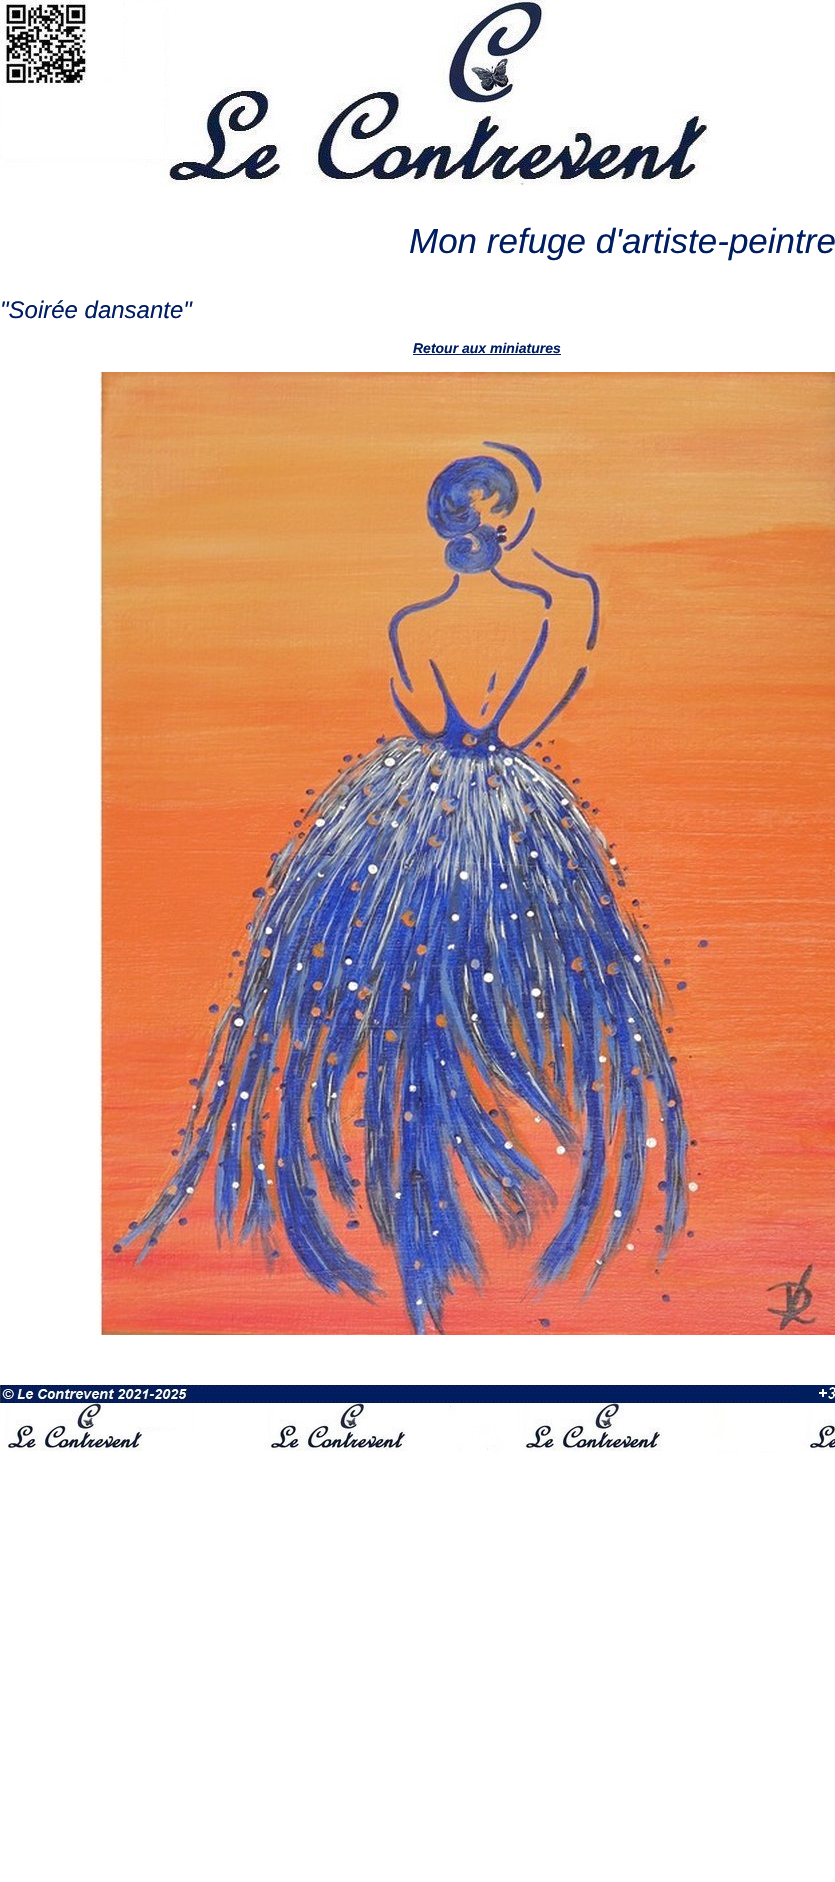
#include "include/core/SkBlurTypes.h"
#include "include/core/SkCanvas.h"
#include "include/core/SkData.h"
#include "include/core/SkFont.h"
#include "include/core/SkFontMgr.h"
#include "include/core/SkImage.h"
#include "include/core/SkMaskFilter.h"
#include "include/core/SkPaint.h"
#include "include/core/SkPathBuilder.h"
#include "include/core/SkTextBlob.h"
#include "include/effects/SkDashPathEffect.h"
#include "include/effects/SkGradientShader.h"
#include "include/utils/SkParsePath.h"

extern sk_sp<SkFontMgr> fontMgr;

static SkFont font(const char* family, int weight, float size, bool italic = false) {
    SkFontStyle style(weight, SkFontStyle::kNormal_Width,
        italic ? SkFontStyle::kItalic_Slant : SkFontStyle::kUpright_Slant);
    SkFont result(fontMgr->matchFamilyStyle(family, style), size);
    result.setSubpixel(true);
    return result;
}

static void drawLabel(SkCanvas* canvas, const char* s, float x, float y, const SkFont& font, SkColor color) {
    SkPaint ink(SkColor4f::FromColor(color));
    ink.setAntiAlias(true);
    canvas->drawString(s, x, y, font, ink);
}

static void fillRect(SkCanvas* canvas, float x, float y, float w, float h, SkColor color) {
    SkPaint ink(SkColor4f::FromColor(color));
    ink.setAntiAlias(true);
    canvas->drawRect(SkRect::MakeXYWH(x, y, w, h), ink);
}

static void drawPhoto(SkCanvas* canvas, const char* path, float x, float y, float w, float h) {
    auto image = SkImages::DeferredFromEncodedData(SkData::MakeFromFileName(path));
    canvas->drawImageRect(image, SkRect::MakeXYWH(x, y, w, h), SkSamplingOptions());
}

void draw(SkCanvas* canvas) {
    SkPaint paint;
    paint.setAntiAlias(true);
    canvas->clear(0xFFFFFFFF);
    drawPhoto(canvas, "assets/img1.png", 0, 0, 712, 186);
    SkFont font1 = font("Liberation Sans", 400, 35, true);
    drawLabel(canvas, "Mon refuge d'artiste-peintre", 409, 253, font1, 0xFF001D60);
    SkFont font2 = font("Liberation Sans", 400, 24, true);
    drawLabel(canvas, "\"Soirée dansante\"", 0, 318, font2, 0xFF001D60);
    SkFont font3 = font("Liberation Sans", 700, 14, true);
    drawLabel(canvas, "Retour aux miniatures", 413, 353, font3, 0xFF001D60);
    fillRect(canvas, 413, 354, 148, 1, 0xFF001D60);
    drawPhoto(canvas, "assets/img2.png", 96, 372, 739, 963);
    drawPhoto(canvas, "assets/img3.png", 0, 1385, 835, 18);
    drawPhoto(canvas, "assets/img4.png", 1, 1403, 834, 50);
}
